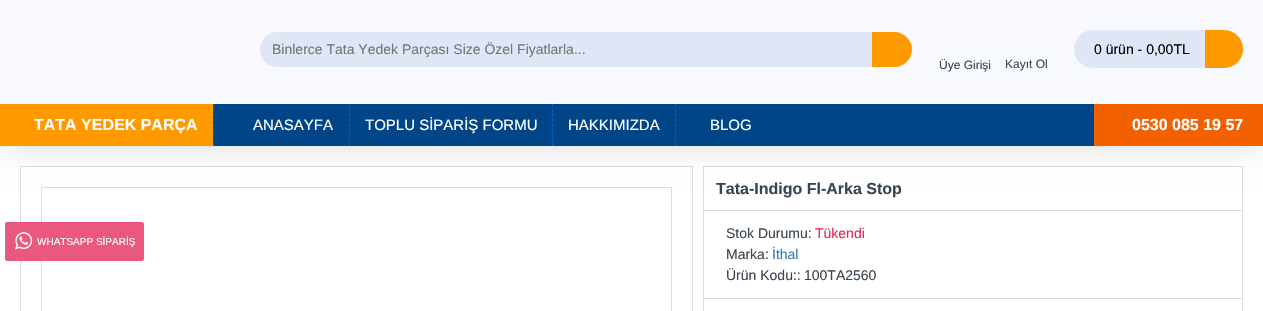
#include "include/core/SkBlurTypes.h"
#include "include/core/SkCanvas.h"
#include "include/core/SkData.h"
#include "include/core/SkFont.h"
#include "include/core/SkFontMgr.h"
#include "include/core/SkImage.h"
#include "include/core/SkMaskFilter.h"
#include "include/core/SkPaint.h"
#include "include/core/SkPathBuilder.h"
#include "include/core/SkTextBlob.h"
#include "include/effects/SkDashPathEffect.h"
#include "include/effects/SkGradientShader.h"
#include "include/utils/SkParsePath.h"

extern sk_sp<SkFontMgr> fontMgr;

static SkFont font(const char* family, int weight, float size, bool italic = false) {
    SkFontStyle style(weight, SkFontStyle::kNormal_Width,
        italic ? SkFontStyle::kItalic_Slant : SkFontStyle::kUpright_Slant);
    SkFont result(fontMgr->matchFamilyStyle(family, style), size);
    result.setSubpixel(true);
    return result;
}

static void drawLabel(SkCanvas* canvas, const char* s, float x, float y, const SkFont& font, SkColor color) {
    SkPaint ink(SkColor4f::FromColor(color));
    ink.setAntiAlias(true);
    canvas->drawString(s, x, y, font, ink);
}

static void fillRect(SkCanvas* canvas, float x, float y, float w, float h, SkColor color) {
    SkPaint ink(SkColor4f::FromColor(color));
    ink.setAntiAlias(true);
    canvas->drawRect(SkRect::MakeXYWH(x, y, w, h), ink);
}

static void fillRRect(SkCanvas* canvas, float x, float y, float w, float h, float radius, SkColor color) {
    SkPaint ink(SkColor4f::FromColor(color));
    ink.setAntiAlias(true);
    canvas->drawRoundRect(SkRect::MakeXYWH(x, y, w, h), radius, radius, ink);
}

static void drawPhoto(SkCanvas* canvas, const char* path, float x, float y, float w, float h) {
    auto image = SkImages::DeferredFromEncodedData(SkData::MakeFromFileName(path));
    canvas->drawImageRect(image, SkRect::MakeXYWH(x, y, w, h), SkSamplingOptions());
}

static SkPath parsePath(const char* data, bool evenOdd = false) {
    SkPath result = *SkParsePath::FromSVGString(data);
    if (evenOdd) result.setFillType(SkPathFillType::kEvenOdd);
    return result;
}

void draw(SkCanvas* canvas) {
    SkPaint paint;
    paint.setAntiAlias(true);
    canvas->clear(0xFFFFFFFF);
    paint.setStroke(true);
    paint.setStrokeWidth(1);
    paint.setColor(0xFFDDDDDD);
    canvas->drawRect(SkRect::MakeXYWH(20.5f, 166.5f, 672, 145), paint);
    canvas->drawRect(SkRect::MakeXYWH(41.5f, 187.5f, 630, 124), paint);
    canvas->drawRect(SkRect::MakeXYWH(703.5f, 166.5f, 539, 44), paint);
    paint.setStroke(false);
    paint.setColor(0x26000000);
    paint.setMaskFilter(SkMaskFilter::MakeBlur(kNormal_SkBlurStyle, 15));
    canvas->drawRect(SkRect::MakeXYWH(5, 4, 1253, 142), paint);
    paint.setMaskFilter(nullptr);
    fillRect(canvas, 0, 0, 1263, 104, 0xFFF7F9FF);
    paint.setColor(0xFFDFE7F7);
    canvas->drawPath(parsePath("M277.5 32H872V67H277.5C268 67 260 59 260 49.5C260 40 268 32 277.5 32Z"), paint);
    SkFont font1 = font("Liberation Sans", 400, 14);
    drawLabel(canvas, "Binlerce Tata Yedek Parçası Size Özel Fiyatlarla...", 272, 54, font1, 0xFF757575);
    paint.setColor(0xFFFF9900);
    canvas->drawPath(parsePath("M872 32H894.5C904 32 912 40 912 49.5C912 59 904 67 894.5 67H872Z"), paint);
    fillRRect(canvas, 1074, 30, 169, 38, 19, 0xFFDFE7F7);
    drawLabel(canvas, "0 ürün - 0,00TL", 1094, 54, font1, 0xFF000000);
    canvas->drawPath(parsePath("M1205 30H1224C1234.5 30 1243 38.5 1243 49C1243 59.5 1234.5 68 1224 68H1205Z"), paint);
    SkFont font2 = font("Liberation Sans", 400, 12);
    drawLabel(canvas, "Üye Girişi", 939, 69, font2, 0xFF38444F);
    drawLabel(canvas, "Kayıt Ol", 1005, 68, font2, 0xFF38444F);
    fillRect(canvas, 213, 104, 881, 42, 0xFF004588);
    fillRect(canvas, 0, 104, 213, 42, 0xFFFF9900);
    SkFont font3 = font("Liberation Sans", 700, 16);
    drawLabel(canvas, "TATA YEDEK PARÇA", 34, 130, font3, 0xFFFFFFFF);
    paint.setStroke(true);
    paint.setColor(0xFF0064C5);
    paint.setPathEffect(SkDashPathEffect::Make({{3, 1.88f}}, 0));
    canvas->drawPath(parsePath("M213.5 104V146"), paint);
    paint.setPathEffect(nullptr);
    SkFont font4 = font("Liberation Sans", 400, 15);
    drawLabel(canvas, "ANASAYFA", 253, 130, font4, 0xFFFFFFFF);
    paint.setPathEffect(SkDashPathEffect::Make({{3, 1.88f}}, 0));
    canvas->drawPath(parsePath("M349.5 104V146"), paint);
    paint.setPathEffect(nullptr);
    drawLabel(canvas, "TOPLU SİPARİŞ FORMU", 365, 130, font4, 0xFFFFFFFF);
    paint.setPathEffect(SkDashPathEffect::Make({{3, 1.88f}}, 0));
    canvas->drawPath(parsePath("M552.5 104V146"), paint);
    paint.setPathEffect(nullptr);
    drawLabel(canvas, "HAKKIMIZDA", 568, 130, font4, 0xFFFFFFFF);
    paint.setPathEffect(SkDashPathEffect::Make({{3, 1.88f}}, 0));
    canvas->drawPath(parsePath("M675.5 104V146"), paint);
    paint.setPathEffect(nullptr);
    drawLabel(canvas, "BLOG", 710, 130, font4, 0xFFFFFFFF);
    fillRect(canvas, 1094, 104, 169, 42, 0xFFF26000);
    drawLabel(canvas, "0530 085 19 57", 1132, 130, font3, 0xFFFFFFFF);
    fillRRect(canvas, 5, 222, 139, 39, 2, 0xFFEB587F);
    drawPhoto(canvas, "assets/img1.png", 15, 232, 18, 18);
    SkFont font5 = font("Liberation Sans", 400, 10);
    drawLabel(canvas, "WHATSAPP SİPARİŞ", 37, 245, font5, 0xFFFFFFFF);
    drawLabel(canvas, "Tata-Indigo Fl-Arka Stop", 716, 194, font3, 0xFF38444F);
    paint.setColor(0xFFDDDDDD);
    canvas->drawRect(SkRect::MakeXYWH(703.5f, 298.5f, 539, 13), paint);
    canvas->drawRect(SkRect::MakeXYWH(703.5f, 210.5f, 539, 88), paint);
    drawLabel(canvas, "Stok Durumu:", 726, 238, font1, 0xFF38444F);
    drawLabel(canvas, "Tükendi", 815, 238, font1, 0xFFE8284D);
    drawLabel(canvas, "Marka:", 726, 259, font1, 0xFF38444F);
    drawLabel(canvas, "İthal", 772, 259, font1, 0xFF337AB7);
    drawLabel(canvas, "Ürün Kodu::", 726, 280, font1, 0xFF38444F);
    drawLabel(canvas, "100TA2560", 804, 280, font1, 0xFF38444F);
}
